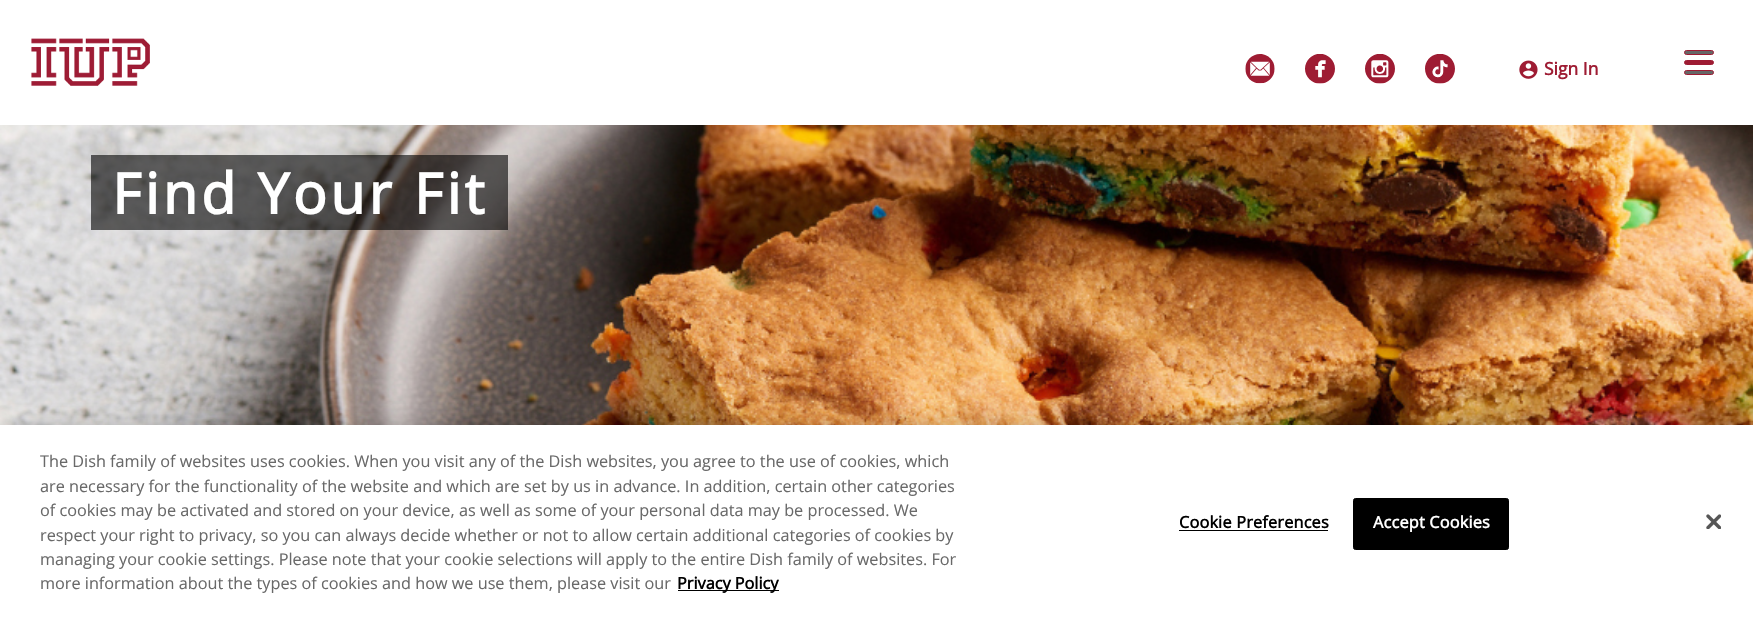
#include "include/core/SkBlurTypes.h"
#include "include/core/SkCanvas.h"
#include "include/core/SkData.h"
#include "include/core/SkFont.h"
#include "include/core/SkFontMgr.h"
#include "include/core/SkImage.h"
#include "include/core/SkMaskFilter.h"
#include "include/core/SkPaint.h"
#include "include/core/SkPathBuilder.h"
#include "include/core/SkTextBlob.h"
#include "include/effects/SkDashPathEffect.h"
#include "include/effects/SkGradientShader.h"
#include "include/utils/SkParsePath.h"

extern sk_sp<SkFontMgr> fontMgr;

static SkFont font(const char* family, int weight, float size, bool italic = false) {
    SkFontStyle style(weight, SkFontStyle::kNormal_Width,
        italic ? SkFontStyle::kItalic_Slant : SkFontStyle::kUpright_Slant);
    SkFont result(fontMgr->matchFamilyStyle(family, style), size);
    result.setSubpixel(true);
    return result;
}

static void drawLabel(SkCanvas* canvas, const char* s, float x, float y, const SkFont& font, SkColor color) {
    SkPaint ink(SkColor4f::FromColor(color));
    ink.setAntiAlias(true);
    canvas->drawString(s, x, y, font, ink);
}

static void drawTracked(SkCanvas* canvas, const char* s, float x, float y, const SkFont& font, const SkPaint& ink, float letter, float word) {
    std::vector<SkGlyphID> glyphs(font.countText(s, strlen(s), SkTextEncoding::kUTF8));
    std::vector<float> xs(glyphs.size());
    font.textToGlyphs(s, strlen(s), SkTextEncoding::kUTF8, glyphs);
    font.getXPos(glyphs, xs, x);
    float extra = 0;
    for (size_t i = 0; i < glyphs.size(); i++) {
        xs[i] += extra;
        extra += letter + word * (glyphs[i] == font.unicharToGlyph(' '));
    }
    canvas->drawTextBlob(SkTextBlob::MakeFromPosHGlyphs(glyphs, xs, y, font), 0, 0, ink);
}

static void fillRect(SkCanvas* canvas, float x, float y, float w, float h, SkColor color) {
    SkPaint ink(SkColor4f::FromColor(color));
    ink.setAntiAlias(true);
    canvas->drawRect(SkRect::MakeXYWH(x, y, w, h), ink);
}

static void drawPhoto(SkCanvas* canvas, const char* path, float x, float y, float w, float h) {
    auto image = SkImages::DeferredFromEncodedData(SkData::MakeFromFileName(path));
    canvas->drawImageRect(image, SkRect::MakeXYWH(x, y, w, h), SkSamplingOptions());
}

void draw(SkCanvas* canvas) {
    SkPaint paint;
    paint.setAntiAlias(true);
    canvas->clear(0xFFFFFFFF);
    drawPhoto(canvas, "assets/img1.png", 31, 38, 119, 48);
    drawPhoto(canvas, "assets/img2.png", 1245, 54, 30, 30);
    drawPhoto(canvas, "assets/img3.png", 1305, 54, 30, 30);
    drawPhoto(canvas, "assets/img4.png", 1365, 54, 30, 30);
    drawPhoto(canvas, "assets/img5.png", 1425, 54, 30, 30);
    drawPhoto(canvas, "assets/img6.png", 1519, 60, 19, 19);
    SkFont font1 = font("Open Sans", 700, 17.5f);
    drawLabel(canvas, "Sign In", 1544, 75, font1, 0xFF9E1C33);
    paint.setColor(0xFF666666);
    canvas->drawRoundRect(SkRect::MakeXYWH(1684.5f, 50.5f, 29, 4), 2, 2, paint);
    paint.setStroke(true);
    paint.setStrokeWidth(1);
    paint.setColor(0xFF9E1C33);
    canvas->drawRoundRect(SkRect::MakeXYWH(1684.5f, 50.5f, 29, 4), 2, 2, paint);
    paint.setStroke(false);
    canvas->drawRoundRect(SkRect::MakeXYWH(1684.5f, 60.5f, 29, 4), 2, 2, paint);
    paint.setStroke(true);
    canvas->drawRoundRect(SkRect::MakeXYWH(1684.5f, 60.5f, 29, 4), 2, 2, paint);
    paint.setStroke(false);
    paint.setColor(0xFF666666);
    canvas->drawRoundRect(SkRect::MakeXYWH(1684.5f, 70.5f, 29, 4), 2, 2, paint);
    paint.setStroke(true);
    paint.setColor(0xFF9E1C33);
    canvas->drawRoundRect(SkRect::MakeXYWH(1684.5f, 70.5f, 29, 4), 2, 2, paint);
    drawPhoto(canvas, "assets/img7.png", 0, 125, 1753, 300);
    fillRect(canvas, 91, 155, 417, 75, 0x99000000);
    SkFont font2 = font("Open Sans", 700, 56.25f);
    paint.setStroke(false);
    paint.setColor(0xFFFFFFFF);
    drawTracked(canvas, "Find Your Fit", 112, 214, font2, paint, 3.75f, 0);
    paint.setColor(0x33000000);
    paint.setMaskFilter(SkMaskFilter::MakeBlur(kNormal_SkBlurStyle, 11));
    canvas->drawRect(SkRect::MakeXYWH(0, 425, 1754, 200), paint);
    paint.setMaskFilter(nullptr);
    fillRect(canvas, 0, 425, 1753, 200, 0xFFFFFFFF);
    SkFont font3 = font("Open Sans", 400, 16.25f);
    drawLabel(canvas, "The Dish family of websites uses cookies. When you visit any of the Dish websites, you agree to the use of cookies, which", 40, 467, font3, 0xFF696969);
    drawLabel(canvas, "are necessary for the functionality of the website and which are set by us in advance. In addition, certain other categories", 40, 492, font3, 0xFF696969);
    drawLabel(canvas, "of cookies may be activated and stored on your device, as well as some of your personal data may be processed. We", 40, 516, font3, 0xFF696969);
    drawLabel(canvas, "respect your right to privacy, so you can always decide whether or not to allow certain additional categories of cookies by", 40, 541, font3, 0xFF696969);
    drawLabel(canvas, "managing your cookie settings. Please note that your cookie selections will apply to the entire Dish family of websites. For", 40, 565, font3, 0xFF696969);
    drawLabel(canvas, "more information about the types of cookies and how we use them, please visit our", 40, 589, font3, 0xFF696969);
    fillRect(canvas, 678, 590, 101, 1, 0xFF000000);
    SkFont font4 = font("Open Sans", 700, 16.25f);
    drawLabel(canvas, "Privacy Policy", 677, 589, font4, 0xFF000000);
    paint.setColor(0xFF000000);
    drawTracked(canvas, "Cookie Preferences", 1179, 528, font4, paint, 0.2f, 0);
    fillRect(canvas, 1179, 530, 149, 1, 0xFF000000);
    canvas->drawRoundRect(SkRect::MakeXYWH(1353.5f, 498.5f, 155, 51), 2, 2, paint);
    paint.setStroke(true);
    canvas->drawRoundRect(SkRect::MakeXYWH(1353.5f, 498.5f, 155, 51), 2, 2, paint);
    paint.setStroke(false);
    paint.setColor(0xFFFFFFFF);
    drawTracked(canvas, "Accept Cookies", 1373, 528, font4, paint, 0.2f, 0);
    drawPhoto(canvas, "assets/img8.png", 1706, 514, 15, 15);
}
